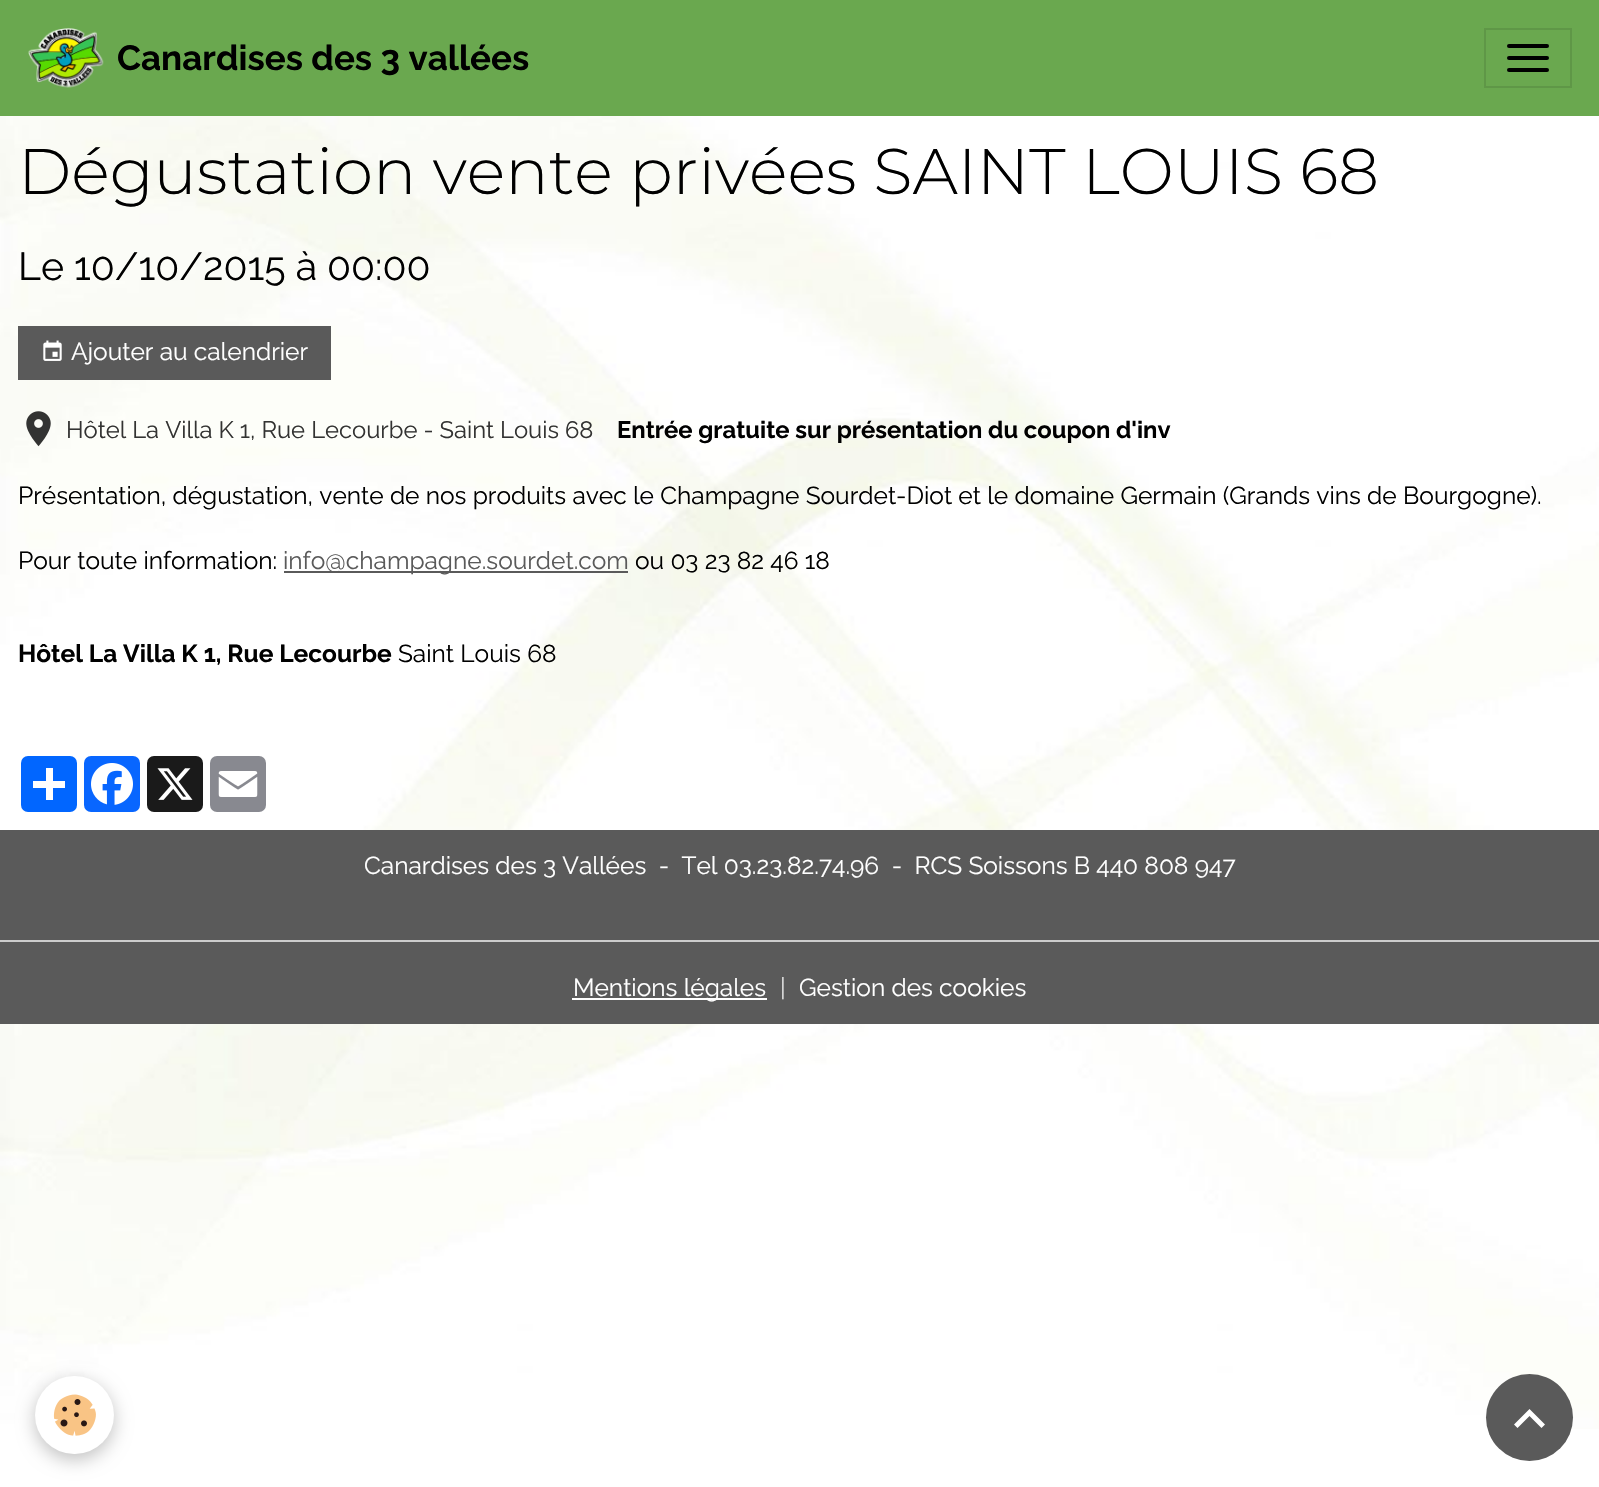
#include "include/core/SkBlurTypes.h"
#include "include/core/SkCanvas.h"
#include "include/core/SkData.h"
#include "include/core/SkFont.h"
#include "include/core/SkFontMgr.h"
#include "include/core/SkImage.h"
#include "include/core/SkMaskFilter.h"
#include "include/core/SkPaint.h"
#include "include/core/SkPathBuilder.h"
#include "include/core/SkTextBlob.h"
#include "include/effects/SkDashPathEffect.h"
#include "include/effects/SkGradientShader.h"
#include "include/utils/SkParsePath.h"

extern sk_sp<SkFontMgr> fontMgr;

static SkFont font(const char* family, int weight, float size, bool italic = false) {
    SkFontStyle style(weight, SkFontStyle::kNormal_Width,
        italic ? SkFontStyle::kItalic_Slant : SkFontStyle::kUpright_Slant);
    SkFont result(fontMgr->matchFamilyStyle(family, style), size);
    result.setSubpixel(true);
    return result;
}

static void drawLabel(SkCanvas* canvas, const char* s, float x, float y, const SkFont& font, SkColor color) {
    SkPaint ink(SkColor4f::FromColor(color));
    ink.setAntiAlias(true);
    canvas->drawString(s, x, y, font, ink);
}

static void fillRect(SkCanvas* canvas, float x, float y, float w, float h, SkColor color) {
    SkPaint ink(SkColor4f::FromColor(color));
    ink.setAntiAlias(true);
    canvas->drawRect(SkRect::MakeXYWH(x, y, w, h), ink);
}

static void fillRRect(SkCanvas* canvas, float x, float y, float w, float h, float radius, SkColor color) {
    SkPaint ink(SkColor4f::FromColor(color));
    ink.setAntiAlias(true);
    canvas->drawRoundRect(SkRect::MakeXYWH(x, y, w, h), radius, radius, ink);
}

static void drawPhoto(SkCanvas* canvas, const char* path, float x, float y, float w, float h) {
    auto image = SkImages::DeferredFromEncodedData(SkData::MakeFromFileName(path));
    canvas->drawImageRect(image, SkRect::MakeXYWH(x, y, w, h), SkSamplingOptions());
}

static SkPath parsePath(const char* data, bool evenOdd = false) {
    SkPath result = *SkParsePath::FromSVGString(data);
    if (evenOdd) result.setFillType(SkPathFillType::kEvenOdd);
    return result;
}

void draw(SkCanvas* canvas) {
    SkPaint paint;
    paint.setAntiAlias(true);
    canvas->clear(0xFFFFFFFF);
    drawPhoto(canvas, "assets/img1.png", 0, 116, 1599, 1313);
    fillRect(canvas, 0, 0, 1599, 116, 0xFF6AA84F);
    drawPhoto(canvas, "assets/img2.png", 28, 28, 76, 60);
    SkFont font1 = font("Raleway", 700, 35);
    drawLabel(canvas, "Canardises des 3 vallées", 117, 70, font1, 0xFF000000);
    paint.setStroke(true);
    paint.setStrokeWidth(2);
    paint.setColor(0xFF5F9747);
    canvas->drawRect(SkRect::MakeXYWH(1485, 29, 86, 58), paint);
    fillRRect(canvas, 1507, 44, 42, 4, 2, 0xFF000000);
    fillRRect(canvas, 1507, 56, 42, 4, 2, 0xFF000000);
    fillRRect(canvas, 1507, 68, 42, 4, 2, 0xFF000000);
    SkFont font2 = font("Montserrat", 300, 64.4f);
    drawLabel(canvas, "Dégustation vente privées SAINT LOUIS 68", 18, 194, font2, 0xFF000000);
    SkFont font3 = font("Raleway", 400, 39.25f);
    drawLabel(canvas, "Le 10/10/2015 à 00:00", 18, 280, font3, 0xFF000000);
    fillRect(canvas, 18, 326, 313, 54, 0xFF5A5A5A);
    drawPhoto(canvas, "assets/img3.png", 43, 340, 19, 21);
    SkFont font4 = font("Raleway", 400, 24.5f);
    drawLabel(canvas, "Ajouter au calendrier", 71, 360, font4, 0xFFFFFFFF);
    drawPhoto(canvas, "assets/img4.png", 26, 411, 25, 36);
    SkFont font5 = font("Raleway", 400, 23.8f);
    drawLabel(canvas, "Hôtel La Villa K 1, Rue Lecourbe - Saint Louis 68", 66, 438, font5, 0xFF333332);
    SkFont font6 = font("Raleway", 700, 23.8f);
    drawLabel(canvas, "Entrée gratuite sur présentation du coupon d'inv", 617, 438, font6, 0xFF000000);
    drawLabel(canvas, "Présentation, dégustation, vente de nos produits avec le Champagne Sourdet-Diot et le domaine Germain (Grands vins de Bourgogne).", 18, 504, font4, 0xFF000000);
    drawLabel(canvas, "Pour toute information:", 18, 569, font4, 0xFF000000);
    fillRect(canvas, 284, 571, 344, 2, 0xFF5A5A5A);
    drawLabel(canvas, "info@champagne.sourdet.com", 283, 569, font4, 0xFF5A5A5A);
    drawLabel(canvas, "ou 03 23 82 46 18", 635, 569, font4, 0xFF000000);
    SkFont font7 = font("Raleway", 700, 24.5f);
    drawLabel(canvas, "Hôtel La Villa K 1, Rue Lecourbe", 18, 662, font7, 0xFF000000);
    drawLabel(canvas, "Saint Louis 68", 398, 662, font4, 0xFF000000);
    fillRRect(canvas, 21, 756, 56, 56, 7, 0xFF0166FF);
    fillRect(canvas, 46, 768, 7, 32, 0xFFFFFFFF);
    fillRect(canvas, 33, 781, 32, 7, 0xFFFFFFFF);
    fillRRect(canvas, 84, 756, 56, 56, 7, 0xFF0866FF);
    drawPhoto(canvas, "assets/img5.png", 91, 763, 42, 42);
    fillRRect(canvas, 147, 756, 56, 56, 7, 0xFF1A1A1A);
    drawPhoto(canvas, "assets/img6.png", 157, 768, 36, 32);
    fillRRect(canvas, 210, 756, 56, 56, 7, 0xFF888990);
    drawPhoto(canvas, "assets/img7.png", 218, 771, 40, 26);
    fillRect(canvas, 0, 830, 1599, 194, 0xFF5A5A5A);
    drawLabel(canvas, "Canardises des 3 Vallées  -  Tel 03.23.82.74.96  -  RCS Soissons B 440 808 947", 364, 874, font4, 0xFFFFFFFF);
    fillRect(canvas, 0, 940, 1599, 2, 0xFFCCCCCC);
    fillRect(canvas, 572, 998, 195, 2, 0xFFFFFFFF);
    drawLabel(canvas, "Mentions légales", 573, 996, font4, 0xFFFFFFFF);
    drawLabel(canvas, "|", 780, 996, font4, 0xFFDEDEDE);
    drawLabel(canvas, "Gestion des cookies", 799, 996, font4, 0xFFFFFFFF);
    paint.setStroke(false);
    paint.setColor(0x3D000000);
    paint.setMaskFilter(SkMaskFilter::MakeBlur(kNormal_SkBlurStyle, 9));
    canvas->drawRoundRect(SkRect::MakeXYWH(35, 1381, 79, 79), 39.5f, 39.5f, paint);
    paint.setMaskFilter(nullptr);
    fillRRect(canvas, 35, 1376, 79, 78, 39, 0xFFFFFFFF);
    drawPhoto(canvas, "assets/img8.png", 53, 1394, 43, 42);
    paint.setColor(0xFF5A5A5A);
    canvas->drawCircle(1529.5f, 1417.5f, 43.5f, paint);
    paint.setColor(0xFFFFFFFF);
    canvas->drawPath(parsePath("M1529.5 1409L1545 1424.5L1541.5 1428L1529.5 1416L1517.5 1428L1514 1424.5Z"), paint);
}
